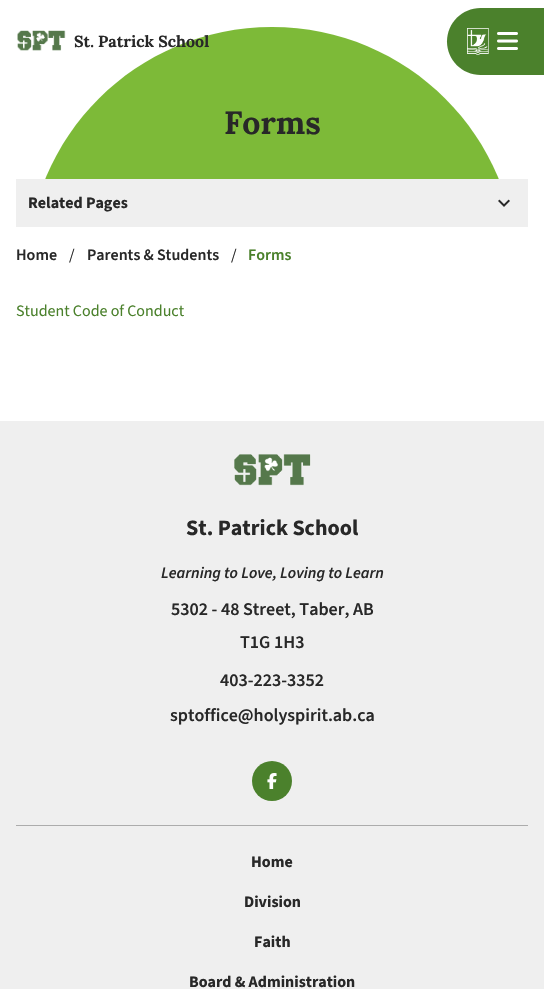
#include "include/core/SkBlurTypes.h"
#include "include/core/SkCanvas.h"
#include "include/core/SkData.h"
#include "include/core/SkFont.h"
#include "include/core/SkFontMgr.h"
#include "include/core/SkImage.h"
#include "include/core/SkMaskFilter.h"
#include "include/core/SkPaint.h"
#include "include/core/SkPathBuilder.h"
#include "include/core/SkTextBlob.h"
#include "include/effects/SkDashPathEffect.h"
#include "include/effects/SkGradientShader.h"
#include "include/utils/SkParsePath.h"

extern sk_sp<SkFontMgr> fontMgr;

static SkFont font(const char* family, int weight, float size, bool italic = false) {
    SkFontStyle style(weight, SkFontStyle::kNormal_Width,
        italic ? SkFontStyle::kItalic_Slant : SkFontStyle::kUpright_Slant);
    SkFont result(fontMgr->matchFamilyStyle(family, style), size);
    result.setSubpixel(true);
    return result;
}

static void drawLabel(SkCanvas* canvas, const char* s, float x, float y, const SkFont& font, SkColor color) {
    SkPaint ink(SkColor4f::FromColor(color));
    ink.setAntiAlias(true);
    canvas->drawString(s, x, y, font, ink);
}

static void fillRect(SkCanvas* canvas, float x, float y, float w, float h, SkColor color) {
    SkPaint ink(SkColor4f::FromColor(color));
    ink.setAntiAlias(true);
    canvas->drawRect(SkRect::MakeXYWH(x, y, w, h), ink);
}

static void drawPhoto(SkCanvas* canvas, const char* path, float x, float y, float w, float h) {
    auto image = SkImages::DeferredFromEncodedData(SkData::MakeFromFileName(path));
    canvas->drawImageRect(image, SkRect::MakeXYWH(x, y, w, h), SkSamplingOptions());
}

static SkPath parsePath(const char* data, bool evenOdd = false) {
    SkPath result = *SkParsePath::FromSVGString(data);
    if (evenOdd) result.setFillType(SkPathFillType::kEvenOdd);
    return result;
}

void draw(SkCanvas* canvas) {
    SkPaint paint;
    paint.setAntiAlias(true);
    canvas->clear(0xFFFFFFFF);
    paint.setColor(0xFF7DBA38);
    canvas->drawPath(parsePath("M272 27C407.5 27 517 136.5 517 272H27C27 136.5 136.5 27 272 27Z"), paint);
    drawPhoto(canvas, "assets/img1.png", 17, 30, 49, 21);
    SkFont font1 = font("Lora", 700, 16);
    drawLabel(canvas, "St. Patrick School", 74, 47, font1, 0xFF282828);
    paint.setColor(0xFF4B812C);
    canvas->drawPath(parsePath("M480.5 8H544V75H480.5C462 75 447 60 447 41.5C447 23 462 8 480.5 8Z"), paint);
    drawPhoto(canvas, "assets/img2.png", 467, 28, 22, 27);
    drawPhoto(canvas, "assets/img3.png", 497, 32, 21, 18);
    SkFont font2 = font("Lora", 700, 32);
    drawLabel(canvas, "Forms", 224, 134, font2, 0xFF282828);
    fillRect(canvas, 16, 179, 512, 48, 0xFFEFEFEF);
    SkFont font3 = font("Source Sans 3", 700, 16);
    drawLabel(canvas, "Related Pages", 28, 208, font3, 0xFF282828);
    drawPhoto(canvas, "assets/img4.png", 498, 199, 12, 8);
    fillRect(canvas, 27, 227, 490, 45, 0xFFFFFFFF);
    SkFont font4 = font("Source Sans 3", 600, 16);
    drawLabel(canvas, "Home", 16, 260, font4, 0xFF282828);
    SkFont font5 = font("Source Sans 3", 400, 16);
    drawLabel(canvas, "/", 69, 260, font5, 0xFF282828);
    drawLabel(canvas, "Parents & Students", 87, 260, font4, 0xFF282828);
    drawLabel(canvas, "/", 231, 260, font5, 0xFF282828);
    drawLabel(canvas, "Forms", 248, 260, font4, 0xFF4B812C);
    drawLabel(canvas, "Student Code of Conduct", 16, 316, font5, 0xFF4B812C);
    fillRect(canvas, 0, 421, 544, 568, 0xFFEFEFEF);
    drawPhoto(canvas, "assets/img5.png", 234, 454, 77, 32);
    SkFont font6 = font("Source Sans 3", 700, 22);
    drawLabel(canvas, "St. Patrick School", 186, 535, font6, 0xFF282828);
    SkFont font7 = font("Source Sans 3", 600, 16, true);
    drawLabel(canvas, "Learning to Love, Loving to Learn", 161, 578, font7, 0xFF282828);
    SkFont font8 = font("Source Sans 3", 600, 18);
    drawLabel(canvas, "5302 - 48 Street, Taber, AB", 171, 615, font8, 0xFF282828);
    drawLabel(canvas, "T1G 1H3", 240, 648, font8, 0xFF282828);
    drawLabel(canvas, "403-223-3352", 220, 686, font8, 0xFF282828);
    drawLabel(canvas, "sptoffice@holyspirit.ab.ca", 170, 721, font8, 0xFF282828);
    canvas->drawCircle(272, 781, 20, paint);
    drawPhoto(canvas, "assets/img6.png", 267, 773, 10, 16);
    fillRect(canvas, 16, 825, 512, 1, 0xFFACACAC);
    drawLabel(canvas, "Home", 251, 867, font3, 0xFF282828);
    drawLabel(canvas, "Division", 244, 907, font3, 0xFF282828);
    drawLabel(canvas, "Faith", 254, 947, font3, 0xFF282828);
    drawLabel(canvas, "Board & Administration", 189, 987, font3, 0xFF282828);
}
